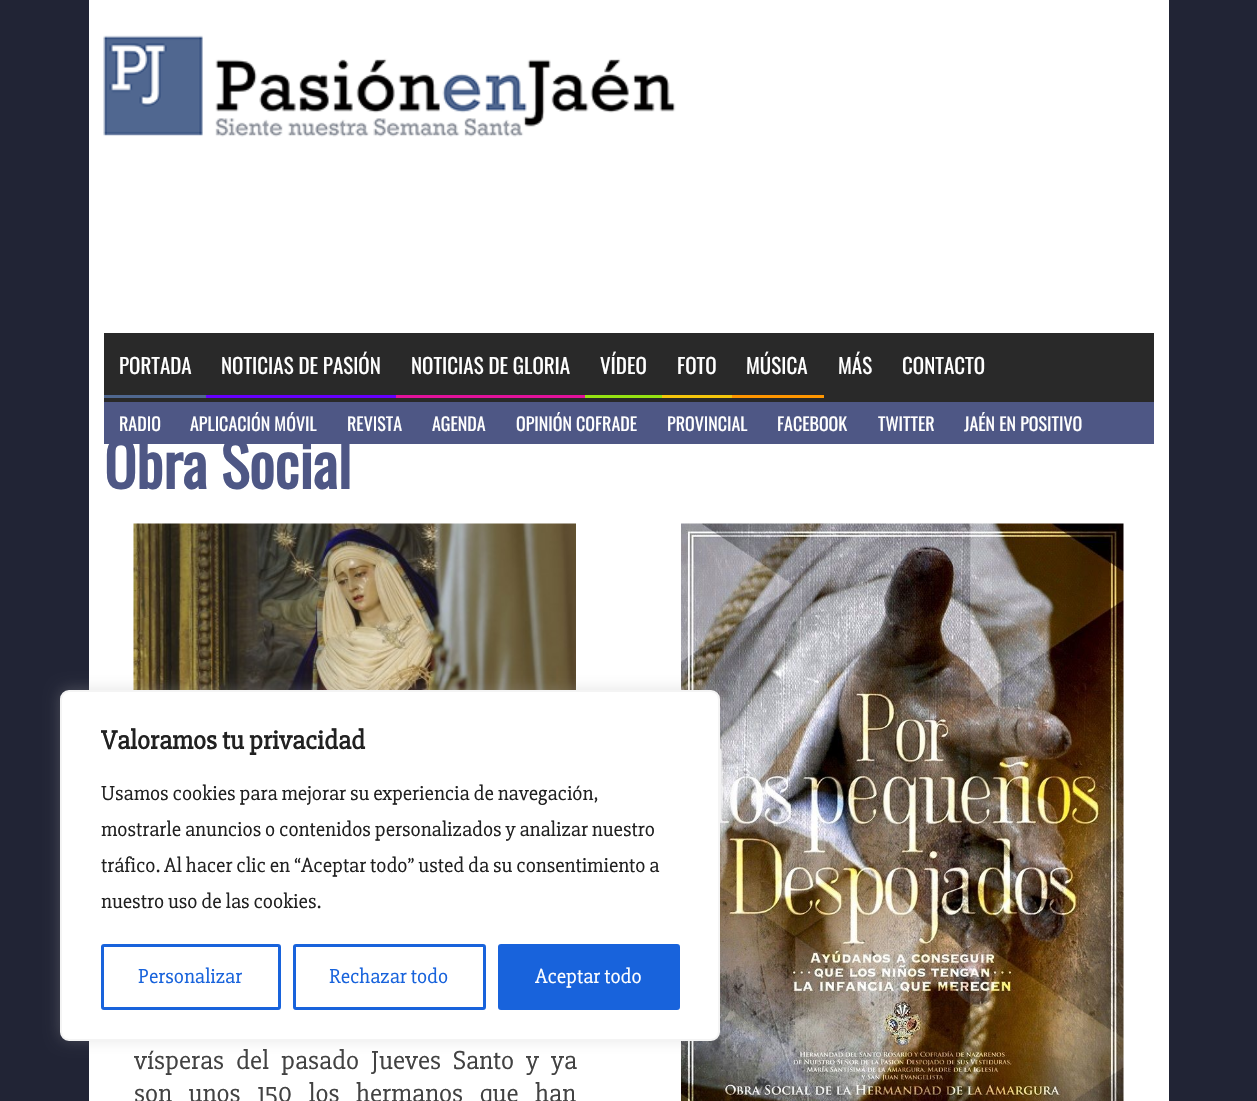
#include "include/core/SkBlurTypes.h"
#include "include/core/SkCanvas.h"
#include "include/core/SkData.h"
#include "include/core/SkFont.h"
#include "include/core/SkFontMgr.h"
#include "include/core/SkImage.h"
#include "include/core/SkMaskFilter.h"
#include "include/core/SkPaint.h"
#include "include/core/SkPathBuilder.h"
#include "include/core/SkTextBlob.h"
#include "include/effects/SkDashPathEffect.h"
#include "include/effects/SkGradientShader.h"
#include "include/utils/SkParsePath.h"

extern sk_sp<SkFontMgr> fontMgr;

static SkFont font(const char* family, int weight, float size, bool italic = false) {
    SkFontStyle style(weight, SkFontStyle::kNormal_Width,
        italic ? SkFontStyle::kItalic_Slant : SkFontStyle::kUpright_Slant);
    SkFont result(fontMgr->matchFamilyStyle(family, style), size);
    result.setSubpixel(true);
    return result;
}

static void drawLabel(SkCanvas* canvas, const char* s, float x, float y, const SkFont& font, SkColor color) {
    SkPaint ink(SkColor4f::FromColor(color));
    ink.setAntiAlias(true);
    canvas->drawString(s, x, y, font, ink);
}

static void drawTracked(SkCanvas* canvas, const char* s, float x, float y, const SkFont& font, const SkPaint& ink, float letter, float word) {
    std::vector<SkGlyphID> glyphs(font.countText(s, strlen(s), SkTextEncoding::kUTF8));
    std::vector<float> xs(glyphs.size());
    font.textToGlyphs(s, strlen(s), SkTextEncoding::kUTF8, glyphs);
    font.getXPos(glyphs, xs, x);
    float extra = 0;
    for (size_t i = 0; i < glyphs.size(); i++) {
        xs[i] += extra;
        extra += letter + word * (glyphs[i] == font.unicharToGlyph(' '));
    }
    canvas->drawTextBlob(SkTextBlob::MakeFromPosHGlyphs(glyphs, xs, y, font), 0, 0, ink);
}

static void fillRect(SkCanvas* canvas, float x, float y, float w, float h, SkColor color) {
    SkPaint ink(SkColor4f::FromColor(color));
    ink.setAntiAlias(true);
    canvas->drawRect(SkRect::MakeXYWH(x, y, w, h), ink);
}

static void drawPhoto(SkCanvas* canvas, const char* path, float x, float y, float w, float h) {
    auto image = SkImages::DeferredFromEncodedData(SkData::MakeFromFileName(path));
    canvas->drawImageRect(image, SkRect::MakeXYWH(x, y, w, h), SkSamplingOptions());
}

void draw(SkCanvas* canvas) {
    SkPaint paint;
    paint.setAntiAlias(true);
    canvas->clear(0xFF212435);
    fillRect(canvas, 89, 444, 1080, 657, 0xFFFFFFFF);
    SkFont font1 = font("Oswald", 700, 60);
    drawLabel(canvas, "Obra Social", 104, 489, font1, 0xFF4E5785);
    fillRect(canvas, 89, 0, 1080, 444, 0xFFFFFFFF);
    drawPhoto(canvas, "assets/img1.png", 103, 35, 573, 102);
    fillRect(canvas, 104, 333, 1050, 69, 0xFF292929);
    fillRect(canvas, 104, 395, 102, 3, 0xFF4F678F);
    SkFont font2 = font("Oswald", 400, 21);
    drawLabel(canvas, "PORTADA", 119, 374, font2, 0xFFFFFFFF);
    fillRect(canvas, 206, 395, 190, 3, 0xFF6600FF);
    drawLabel(canvas, "NOTICIAS DE PASIÓN", 221, 374, font2, 0xFFFFFFFF);
    fillRect(canvas, 396, 395, 189, 3, 0xFFE2129B);
    drawLabel(canvas, "NOTICIAS DE GLORIA", 411, 374, font2, 0xFFFFFFFF);
    fillRect(canvas, 585, 395, 77, 3, 0xFF96E212);
    drawLabel(canvas, "VÍDEO", 600, 374, font2, 0xFFFFFFFF);
    fillRect(canvas, 662, 395, 70, 3, 0xFFF4C60C);
    drawLabel(canvas, "FOTO", 677, 374, font2, 0xFFFFFFFF);
    fillRect(canvas, 732, 395, 92, 3, 0xFFFF9600);
    drawLabel(canvas, "MÚSICA", 746, 374, font2, 0xFFFFFFFF);
    drawLabel(canvas, "MÁS", 838, 374, font2, 0xFFFFFFFF);
    drawLabel(canvas, "CONTACTO", 902, 374, font2, 0xFFFFFFFF);
    fillRect(canvas, 104, 402, 1050, 42, 0xFF4E5785);
    SkFont font3 = font("Oswald", 400, 18);
    drawLabel(canvas, "RADIO", 119, 431, font3, 0xFFFFFFFF);
    drawLabel(canvas, "APLICACIÓN MÓVIL", 190, 431, font3, 0xFFFFFFFF);
    drawLabel(canvas, "REVISTA", 347, 431, font3, 0xFFFFFFFF);
    drawLabel(canvas, "AGENDA", 432, 431, font3, 0xFFFFFFFF);
    drawLabel(canvas, "OPINIÓN COFRADE", 516, 431, font3, 0xFFFFFFFF);
    drawLabel(canvas, "PROVINCIAL", 667, 431, font3, 0xFFFFFFFF);
    drawLabel(canvas, "FACEBOOK", 777, 431, font3, 0xFFFFFFFF);
    drawLabel(canvas, "TWITTER", 878, 431, font3, 0xFFFFFFFF);
    drawLabel(canvas, "JAÉN EN POSITIVO", 964, 431, font3, 0xFFFFFFFF);
    drawPhoto(canvas, "assets/img2.png", 133, 523, 443, 167);
    SkFont font4 = font("Slabo 27px", 400, 27);
    paint.setColor(0xFF424242);
    drawTracked(canvas, "vísperas del pasado Jueves Santo y ya", 134, 1069, font4, paint, 0, 7);
    drawTracked(canvas, "son unos 150 los hermanos que han", 134, 1102, font4, paint, 0, 11.5f);
    drawPhoto(canvas, "assets/img3.png", 681, 523, 443, 578);
    paint.setColor(0x4DACABAB);
    paint.setMaskFilter(SkMaskFilter::MakeBlur(kNormal_SkBlurStyle, 7.5f));
    canvas->drawRoundRect(SkRect::MakeXYWH(60, 689, 660, 351), 9, 9, paint);
    paint.setMaskFilter(nullptr);
    paint.setColor(0xFFFFFFFF);
    canvas->drawRoundRect(SkRect::MakeXYWH(61, 691, 658, 349), 8, 8, paint);
    paint.setStroke(true);
    paint.setStrokeWidth(2);
    paint.setColor(0xFFF4F4F4);
    canvas->drawRoundRect(SkRect::MakeXYWH(61, 691, 658, 349), 8, 8, paint);
    SkFont font5 = font("Slabo 27px", 700, 27);
    drawLabel(canvas, "Valoramos tu privacidad", 101, 749, font5, 0xFF212121);
    SkFont font6 = font("Slabo 27px", 400, 21);
    drawLabel(canvas, "Usamos cookies para mejorar su experiencia de navegación,", 101, 800, font6, 0xFF212121);
    drawLabel(canvas, "mostrarle anuncios o contenidos personalizados y analizar nuestro", 101, 836, font6, 0xFF212121);
    drawLabel(canvas, "tráfico. Al hacer clic en “Aceptar todo” usted da su consentimiento a", 101, 872, font6, 0xFF212121);
    drawLabel(canvas, "nuestro uso de las cookies.", 101, 908, font6, 0xFF212121);
    paint.setStrokeWidth(3);
    paint.setColor(0xFF1863DC);
    canvas->drawRoundRect(SkRect::MakeXYWH(102.5f, 945.5f, 177, 63), 1.5f, 1.5f, paint);
    drawLabel(canvas, "Personalizar", 138, 983, font6, 0xFF1863DC);
    canvas->drawRoundRect(SkRect::MakeXYWH(294.5f, 945.5f, 190, 63), 1.5f, 1.5f, paint);
    drawLabel(canvas, "Rechazar todo", 329, 983, font6, 0xFF1863DC);
    paint.setStroke(false);
    canvas->drawRoundRect(SkRect::MakeXYWH(499.5f, 945.5f, 179, 63), 1.5f, 1.5f, paint);
    paint.setStroke(true);
    canvas->drawRoundRect(SkRect::MakeXYWH(499.5f, 945.5f, 179, 63), 1.5f, 1.5f, paint);
    drawLabel(canvas, "Aceptar todo", 535, 983, font6, 0xFFFFFFFF);
}
